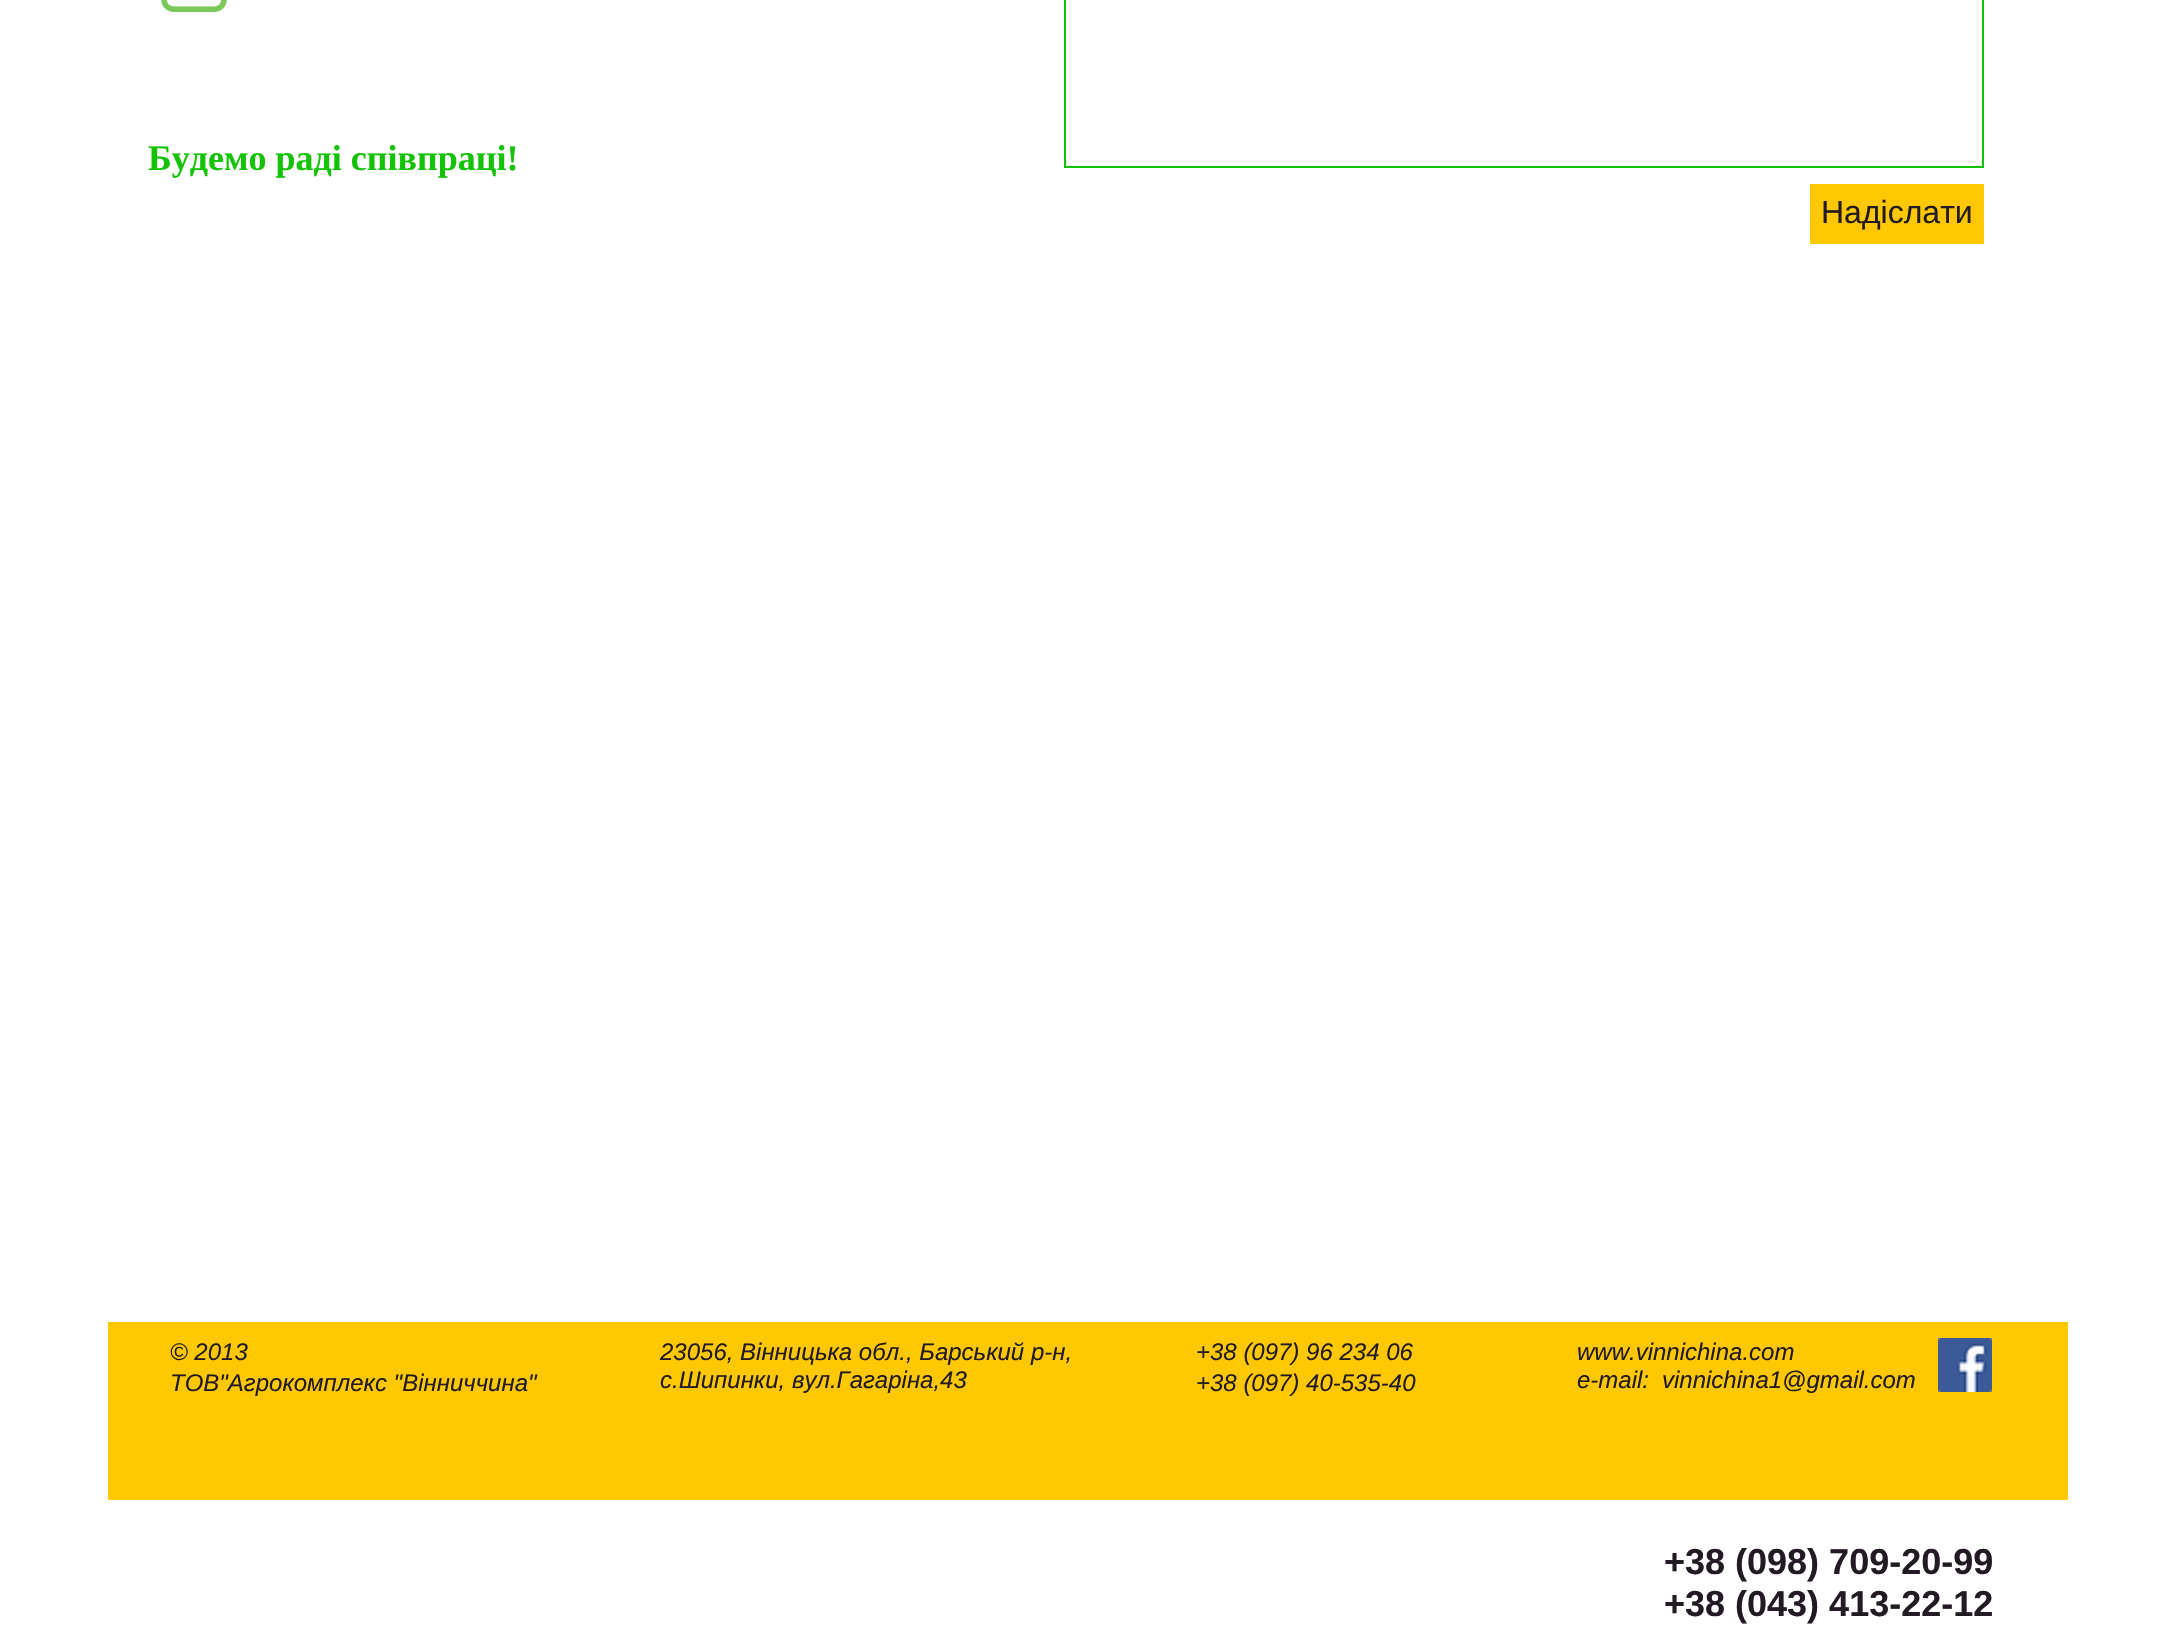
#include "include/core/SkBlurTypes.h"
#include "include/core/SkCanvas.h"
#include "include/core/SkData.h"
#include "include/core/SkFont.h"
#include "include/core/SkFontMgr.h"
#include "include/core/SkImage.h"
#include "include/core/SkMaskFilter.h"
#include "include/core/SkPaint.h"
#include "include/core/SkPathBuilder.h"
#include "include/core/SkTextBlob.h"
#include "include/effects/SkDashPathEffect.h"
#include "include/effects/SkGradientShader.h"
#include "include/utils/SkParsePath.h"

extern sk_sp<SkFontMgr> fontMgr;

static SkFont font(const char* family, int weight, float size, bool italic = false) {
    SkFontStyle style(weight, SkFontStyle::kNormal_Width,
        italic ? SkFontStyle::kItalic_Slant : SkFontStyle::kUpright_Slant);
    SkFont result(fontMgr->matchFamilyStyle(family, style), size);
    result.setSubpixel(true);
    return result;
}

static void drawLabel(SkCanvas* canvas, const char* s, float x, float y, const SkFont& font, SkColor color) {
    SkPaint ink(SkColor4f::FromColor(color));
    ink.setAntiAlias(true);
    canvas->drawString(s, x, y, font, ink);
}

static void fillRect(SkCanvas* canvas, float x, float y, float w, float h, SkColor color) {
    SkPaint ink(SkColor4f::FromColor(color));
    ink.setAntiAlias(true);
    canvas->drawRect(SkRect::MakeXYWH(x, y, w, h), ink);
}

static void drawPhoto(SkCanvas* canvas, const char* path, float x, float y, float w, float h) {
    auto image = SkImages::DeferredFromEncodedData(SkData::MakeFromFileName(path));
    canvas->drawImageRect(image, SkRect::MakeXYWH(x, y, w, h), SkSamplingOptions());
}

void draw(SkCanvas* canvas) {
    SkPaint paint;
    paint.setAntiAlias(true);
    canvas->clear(0xFFFFFFFF);
    drawPhoto(canvas, "assets/img1.png", 161, 0, 66, 12);
    SkFont font1 = font("Liberation Serif", 700, 36);
    drawLabel(canvas, "Будемо раді співпраці!", 148, 170, font1, 0xFF14C204);
    paint.setStroke(true);
    paint.setStrokeWidth(2);
    paint.setColor(0xFF14C204);
    canvas->drawRect(SkRect::MakeXYWH(1065, -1, 918, 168), paint);
    fillRect(canvas, 1810, 184, 174, 60, 0xFFFFC802);
    SkFont font2 = font("Liberation Sans", 400, 32);
    drawLabel(canvas, "Надіслати", 1821, 223, font2, 0xFF221B23);
    fillRect(canvas, 108, 1322, 1960, 178, 0xFFFFC802);
    SkFont font3 = font("Liberation Sans", 400, 24, true);
    drawLabel(canvas, "© 2013", 170, 1360, font3, 0xFF221B23);
    drawLabel(canvas, "ТОВ\"Агрокомплекс \"Вінниччина\"", 170, 1391, font3, 0xFF221B23);
    drawLabel(canvas, "23056, Вінницька обл., Барський р-н,", 660, 1360, font3, 0xFF221B23);
    drawLabel(canvas, "с.Шипинки, вул.Гагаріна,43", 660, 1388, font3, 0xFF221B23);
    drawLabel(canvas, "+38 (097) 96 234 06", 1196, 1360, font3, 0xFF221B23);
    drawLabel(canvas, "+38 (097) 40-535-40", 1196, 1391, font3, 0xFF221B23);
    drawLabel(canvas, "www.vinnichina.com", 1577, 1360, font3, 0xFF221B23);
    drawLabel(canvas, "e-mail:", 1577, 1388, font3, 0xFF221B23);
    drawLabel(canvas, "vinnichina1@gmail.com", 1662, 1388, font3, 0xFF221B23);
    drawPhoto(canvas, "assets/img2.png", 1938, 1338, 54, 54);
    SkFont font4 = font("Liberation Sans", 700, 36);
    drawLabel(canvas, "+38 (098) 709-20-99", 1664, 1574, font4, 0xFF221B23);
    drawLabel(canvas, "+38 (043) 413-22-12", 1664, 1616, font4, 0xFF221B23);
}
